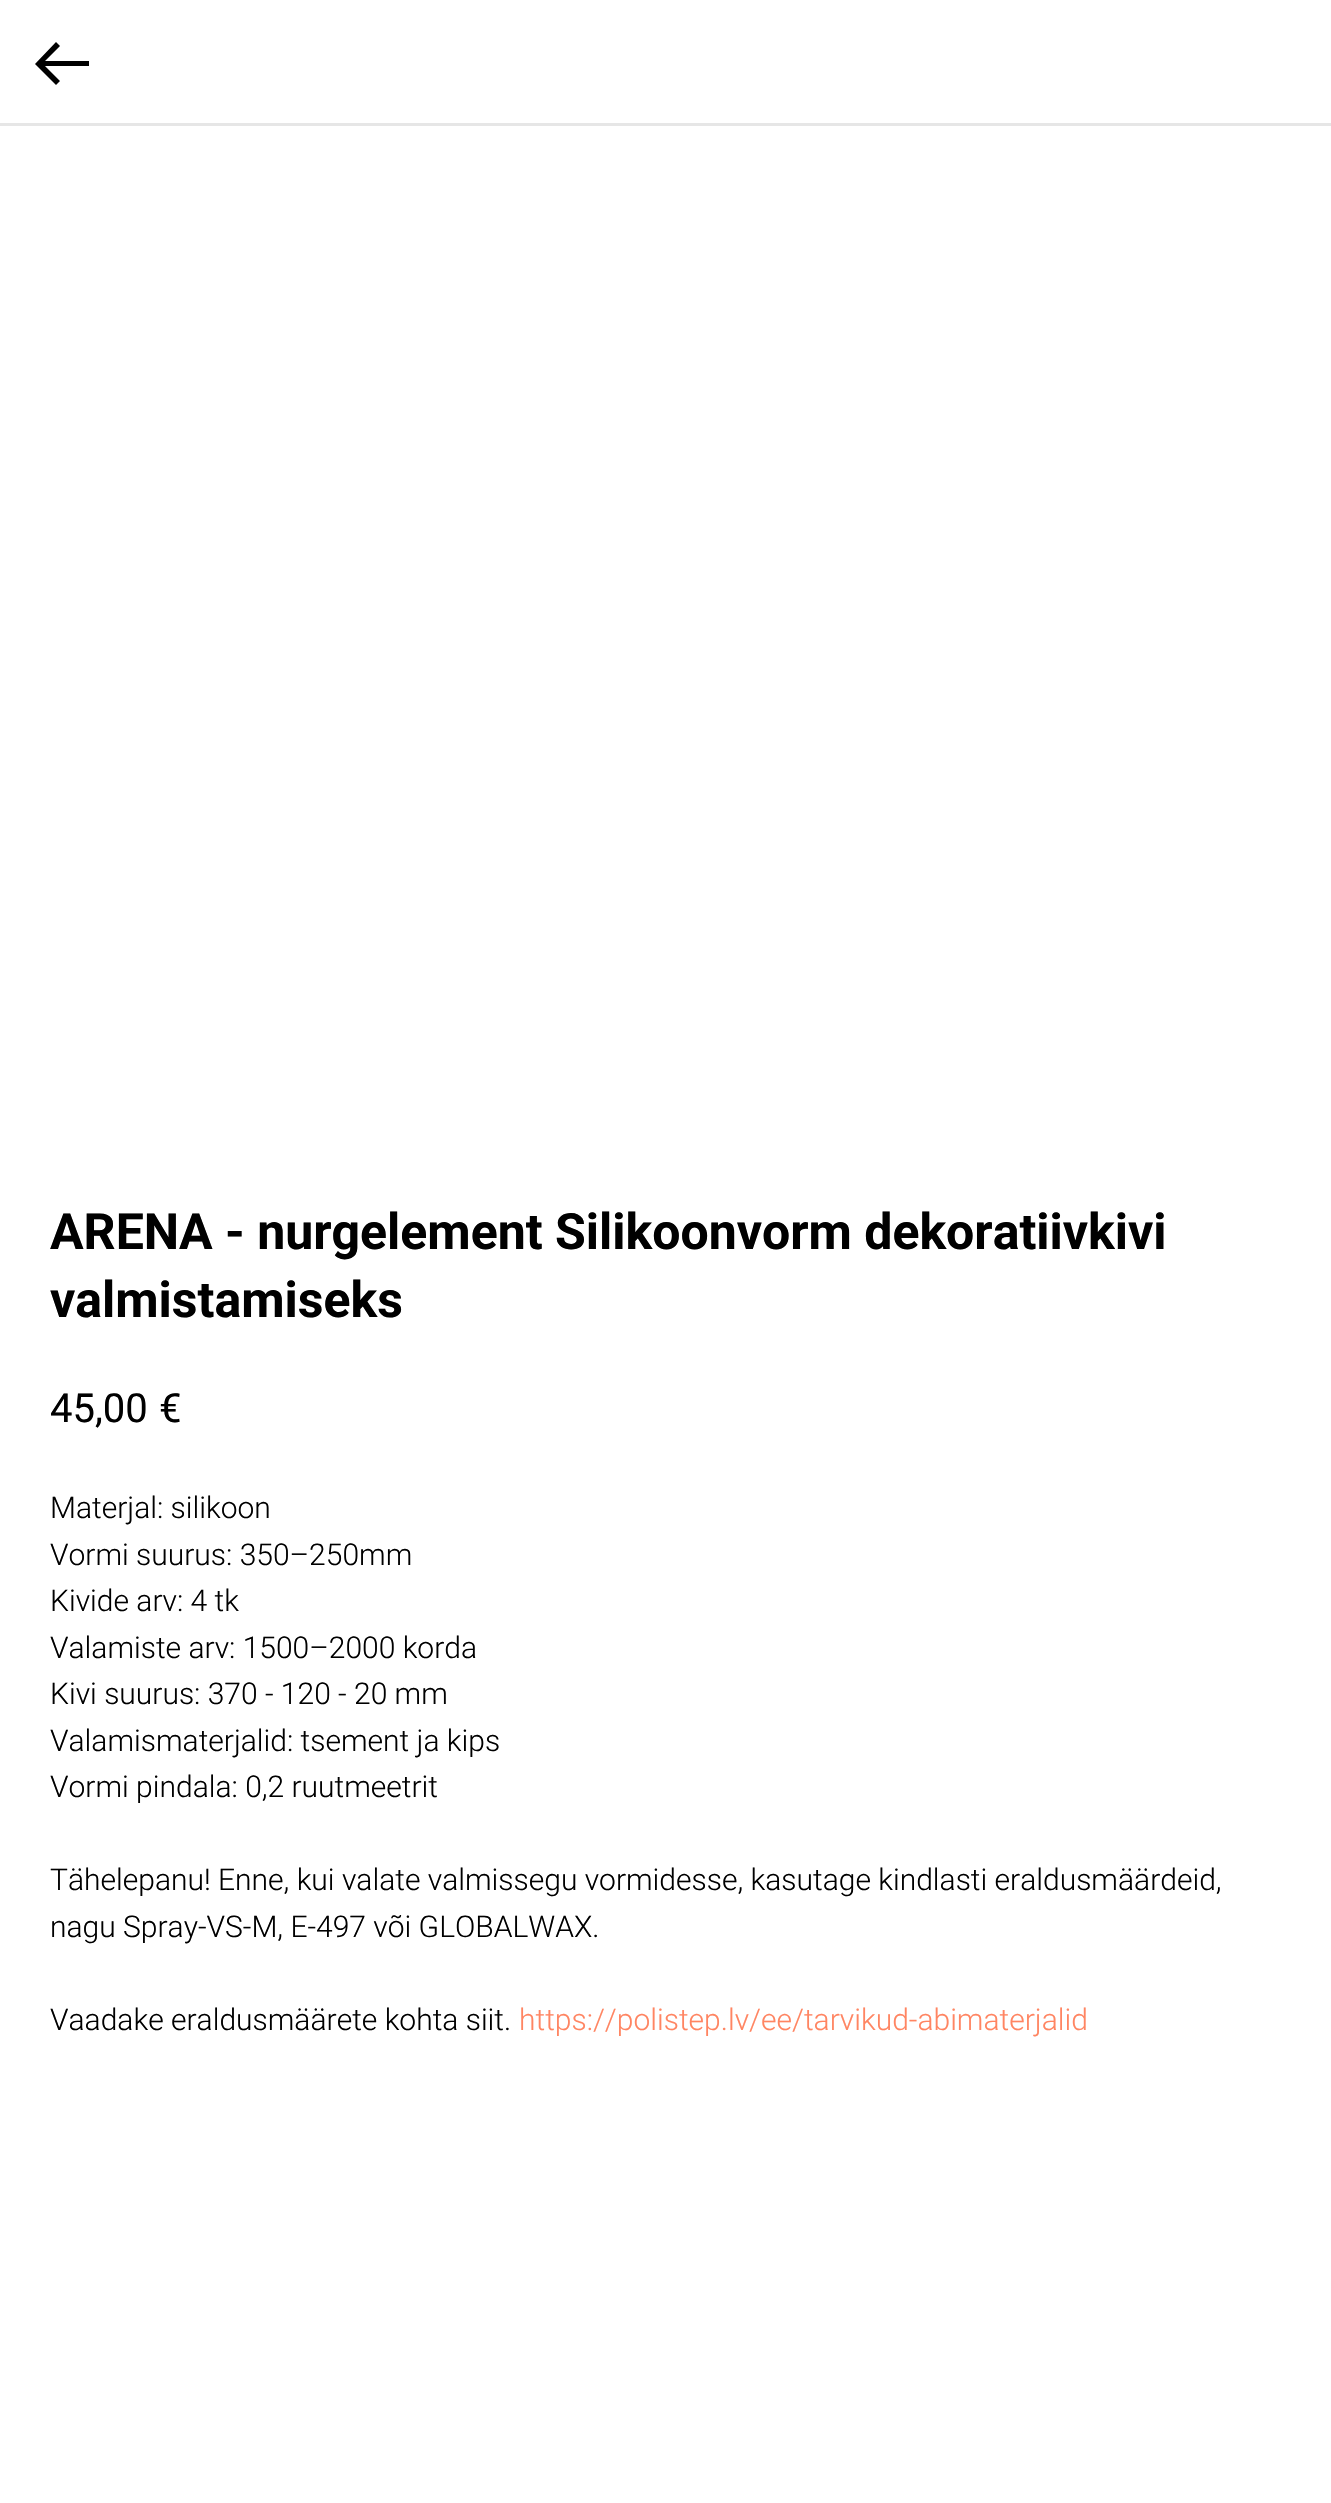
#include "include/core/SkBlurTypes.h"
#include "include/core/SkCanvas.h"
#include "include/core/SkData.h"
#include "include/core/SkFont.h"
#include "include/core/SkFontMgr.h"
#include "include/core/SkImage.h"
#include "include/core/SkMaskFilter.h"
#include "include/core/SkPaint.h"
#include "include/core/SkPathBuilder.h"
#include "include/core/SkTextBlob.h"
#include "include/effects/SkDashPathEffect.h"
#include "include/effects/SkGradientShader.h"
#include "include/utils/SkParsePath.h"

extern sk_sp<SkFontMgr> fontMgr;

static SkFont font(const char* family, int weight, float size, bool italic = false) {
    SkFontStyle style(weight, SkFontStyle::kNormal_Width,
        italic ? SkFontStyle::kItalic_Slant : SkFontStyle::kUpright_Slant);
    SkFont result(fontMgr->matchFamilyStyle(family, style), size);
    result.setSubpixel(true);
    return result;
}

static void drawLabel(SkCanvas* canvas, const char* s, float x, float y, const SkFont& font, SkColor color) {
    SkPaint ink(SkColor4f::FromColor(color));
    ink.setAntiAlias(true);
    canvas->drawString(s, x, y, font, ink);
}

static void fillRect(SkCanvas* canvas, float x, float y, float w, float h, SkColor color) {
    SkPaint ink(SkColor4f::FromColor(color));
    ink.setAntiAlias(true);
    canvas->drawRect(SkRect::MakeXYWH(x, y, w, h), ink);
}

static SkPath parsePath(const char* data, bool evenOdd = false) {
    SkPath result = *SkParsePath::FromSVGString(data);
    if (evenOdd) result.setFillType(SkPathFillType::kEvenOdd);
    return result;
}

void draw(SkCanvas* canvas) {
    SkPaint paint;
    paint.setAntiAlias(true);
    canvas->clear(0xFFFFFFFF);
    fillRect(canvas, 0, 123, 1331, 3, 0xFFE6E6E6);
    paint.setColor(0xFF000000);
    canvas->drawPath(parsePath("M56 42L60 46L45 61H89V66H45L60 81L56 85L35 64Z"), paint);
    SkFont font1 = font("Roboto", 700, 50);
    drawLabel(canvas, "ARENA - nurgelement Silikoonvorm dekoratiivkivi", 50, 1249, font1, 0xFF000000);
    drawLabel(canvas, "valmistamiseks", 50, 1317, font1, 0xFF000000);
    SkFont font2 = font("Roboto", 400, 40);
    drawLabel(canvas, "45,00", 50, 1422, font2, 0xFF000000);
    drawLabel(canvas, "€", 159, 1422, font2, 0xFF000000);
    SkFont font3 = font("Roboto", 300, 30);
    drawLabel(canvas, "Materjal: silikoon", 50, 1518, font3, 0xFF000000);
    drawLabel(canvas, "Vormi suurus: 350–250mm", 50, 1565, font3, 0xFF000000);
    drawLabel(canvas, "Kivide arv: 4 tk", 50, 1611, font3, 0xFF000000);
    drawLabel(canvas, "Valamiste arv: 1500–2000 korda", 50, 1658, font3, 0xFF000000);
    drawLabel(canvas, "Kivi suurus: 370 - 120 - 20 mm", 50, 1704, font3, 0xFF000000);
    drawLabel(canvas, "Valamismaterjalid: tsement ja kips", 50, 1751, font3, 0xFF000000);
    drawLabel(canvas, "Vormi pindala: 0,2 ruutmeetrit", 50, 1797, font3, 0xFF000000);
    drawLabel(canvas, "Tähelepanu! Enne, kui valate valmissegu vormidesse, kasutage kindlasti eraldusmäärdeid,", 50, 1890, font3, 0xFF000000);
    drawLabel(canvas, "nagu Spray-VS-M, E-497 või GLOBALWAX.", 50, 1937, font3, 0xFF000000);
    drawLabel(canvas, "Vaadake eraldusmäärete kohta siit.", 50, 2030, font3, 0xFF000000);
    drawLabel(canvas, "https://polistep.lv/ee/tarvikud-abimaterjalid", 519, 2030, font3, 0xFFFF8562);
}
